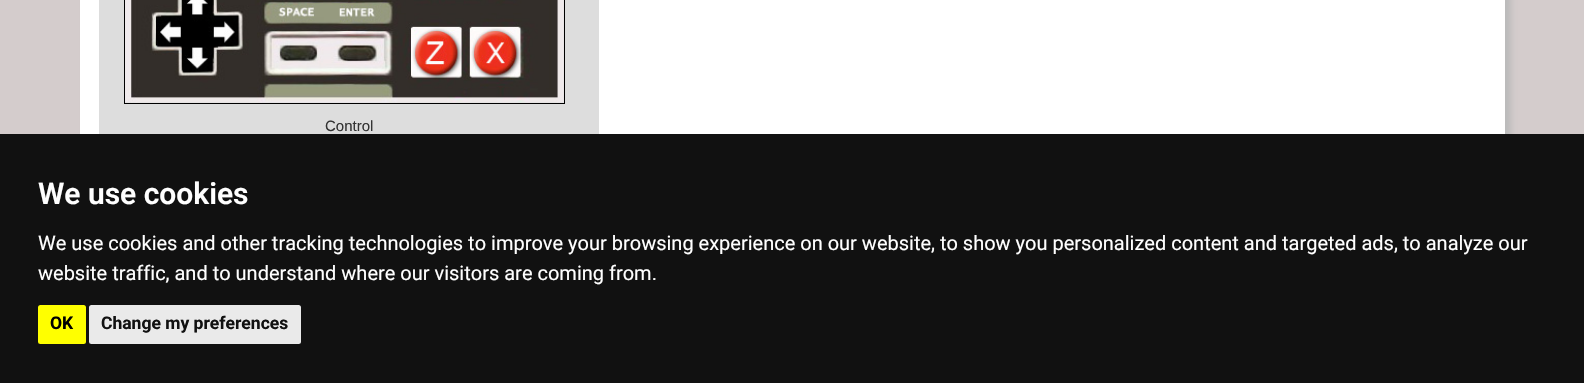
#include "include/core/SkBlurTypes.h"
#include "include/core/SkCanvas.h"
#include "include/core/SkData.h"
#include "include/core/SkFont.h"
#include "include/core/SkFontMgr.h"
#include "include/core/SkImage.h"
#include "include/core/SkMaskFilter.h"
#include "include/core/SkPaint.h"
#include "include/core/SkPathBuilder.h"
#include "include/core/SkTextBlob.h"
#include "include/effects/SkDashPathEffect.h"
#include "include/effects/SkGradientShader.h"
#include "include/utils/SkParsePath.h"

extern sk_sp<SkFontMgr> fontMgr;

static SkFont font(const char* family, int weight, float size, bool italic = false) {
    SkFontStyle style(weight, SkFontStyle::kNormal_Width,
        italic ? SkFontStyle::kItalic_Slant : SkFontStyle::kUpright_Slant);
    SkFont result(fontMgr->matchFamilyStyle(family, style), size);
    result.setSubpixel(true);
    return result;
}

static void drawLabel(SkCanvas* canvas, const char* s, float x, float y, const SkFont& font, SkColor color) {
    SkPaint ink(SkColor4f::FromColor(color));
    ink.setAntiAlias(true);
    canvas->drawString(s, x, y, font, ink);
}

static void fillRect(SkCanvas* canvas, float x, float y, float w, float h, SkColor color) {
    SkPaint ink(SkColor4f::FromColor(color));
    ink.setAntiAlias(true);
    canvas->drawRect(SkRect::MakeXYWH(x, y, w, h), ink);
}

static void fillRRect(SkCanvas* canvas, float x, float y, float w, float h, float radius, SkColor color) {
    SkPaint ink(SkColor4f::FromColor(color));
    ink.setAntiAlias(true);
    canvas->drawRoundRect(SkRect::MakeXYWH(x, y, w, h), radius, radius, ink);
}

static void drawPhoto(SkCanvas* canvas, const char* path, float x, float y, float w, float h) {
    auto image = SkImages::DeferredFromEncodedData(SkData::MakeFromFileName(path));
    canvas->drawImageRect(image, SkRect::MakeXYWH(x, y, w, h), SkSamplingOptions());
}

void draw(SkCanvas* canvas) {
    SkPaint paint;
    paint.setAntiAlias(true);
    canvas->clear(0xFFD4CCCC);
    paint.setColor(0xFFBBBBBB);
    paint.setMaskFilter(SkMaskFilter::MakeBlur(kNormal_SkBlurStyle, 3));
    canvas->drawRect(SkRect::MakeXYWH(86, -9, 1425, 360), paint);
    paint.setMaskFilter(nullptr);
    fillRect(canvas, 80, 0, 1425, 134, 0xFFFFFFFF);
    fillRect(canvas, 99, 0, 500, 134, 0xFFDDDDDD);
    paint.setStroke(true);
    paint.setStrokeWidth(1);
    paint.setColor(0xFF000000);
    canvas->drawRect(SkRect::MakeXYWH(124.5f, -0.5f, 440, 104), paint);
    drawPhoto(canvas, "assets/img1.png", 125, 0, 439, 103);
    SkFont font1 = font("Liberation Sans", 400, 15);
    drawLabel(canvas, "Control", 325, 131, font1, 0xFF333333);
    fillRect(canvas, 0, 134, 1584, 249, 0xFF111111);
    SkFont font2 = font("Roboto", 600, 30);
    drawLabel(canvas, "We use cookies", 38, 204, font2, 0xFFFFFFFF);
    SkFont font3 = font("Roboto", 400, 20);
    drawLabel(canvas, "We use cookies and other tracking technologies to improve your browsing experience on our website, to show you personalized content and targeted ads, to analyze our", 38, 250, font3, 0xFFFFFFFF);
    drawLabel(canvas, "website traffic, and to understand where our visitors are coming from.", 38, 280, font3, 0xFFFFFFFF);
    fillRRect(canvas, 38, 305, 48, 39, 2.5f, 0xFFFFFF00);
    SkFont font4 = font("Roboto", 700, 17.5f);
    drawLabel(canvas, "OK", 50, 329, font4, 0xFF000000);
    fillRRect(canvas, 89, 305, 212, 39, 2.5f, 0xFFEAEAEA);
    drawLabel(canvas, "Change my preferences", 101, 329, font4, 0xFF111111);
}
